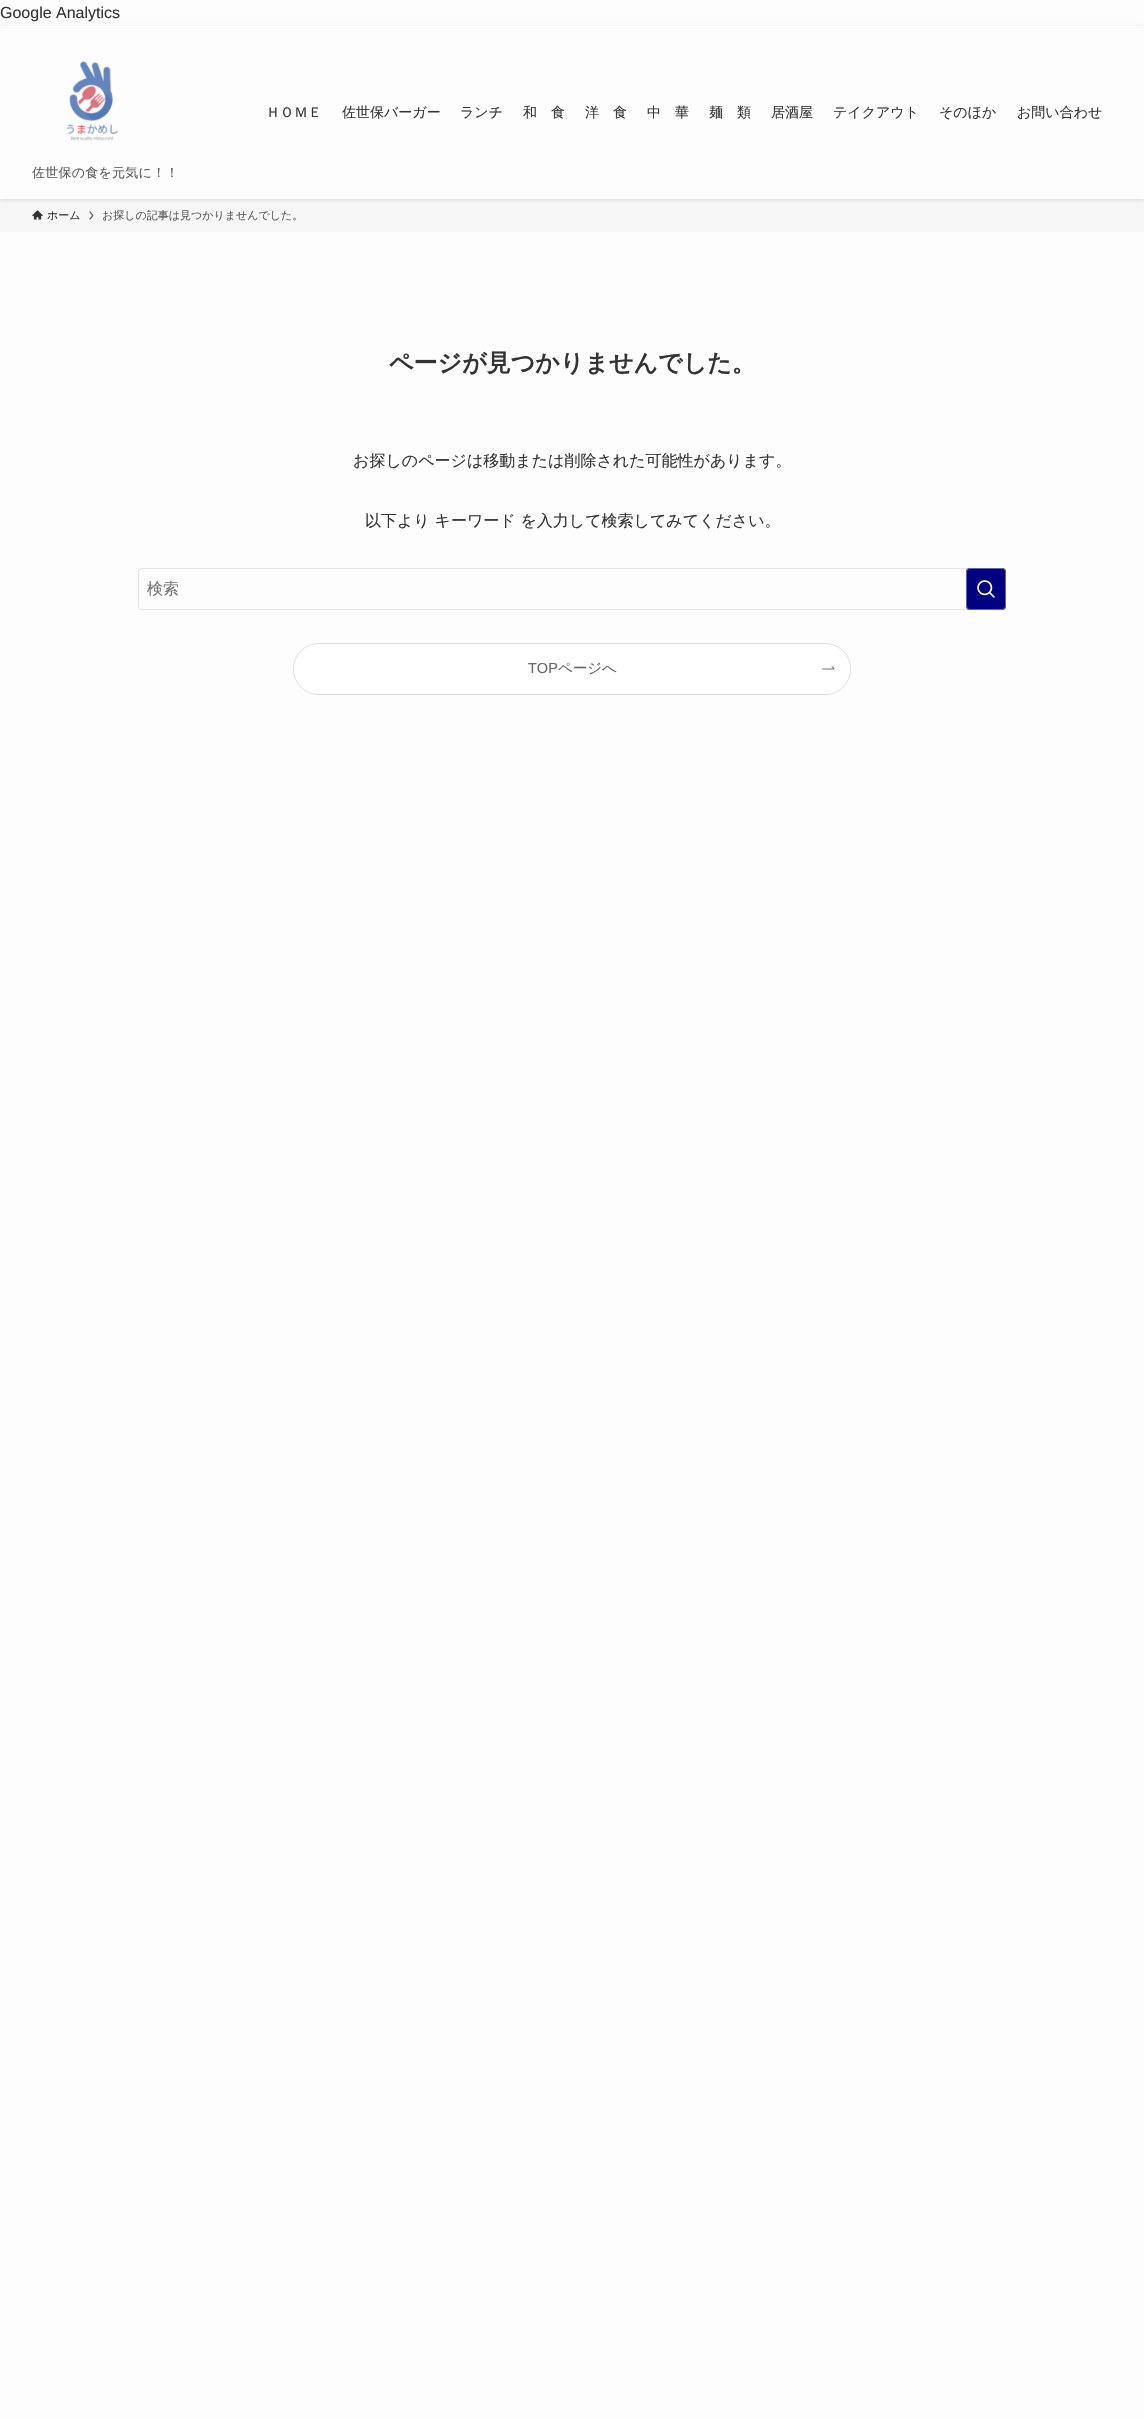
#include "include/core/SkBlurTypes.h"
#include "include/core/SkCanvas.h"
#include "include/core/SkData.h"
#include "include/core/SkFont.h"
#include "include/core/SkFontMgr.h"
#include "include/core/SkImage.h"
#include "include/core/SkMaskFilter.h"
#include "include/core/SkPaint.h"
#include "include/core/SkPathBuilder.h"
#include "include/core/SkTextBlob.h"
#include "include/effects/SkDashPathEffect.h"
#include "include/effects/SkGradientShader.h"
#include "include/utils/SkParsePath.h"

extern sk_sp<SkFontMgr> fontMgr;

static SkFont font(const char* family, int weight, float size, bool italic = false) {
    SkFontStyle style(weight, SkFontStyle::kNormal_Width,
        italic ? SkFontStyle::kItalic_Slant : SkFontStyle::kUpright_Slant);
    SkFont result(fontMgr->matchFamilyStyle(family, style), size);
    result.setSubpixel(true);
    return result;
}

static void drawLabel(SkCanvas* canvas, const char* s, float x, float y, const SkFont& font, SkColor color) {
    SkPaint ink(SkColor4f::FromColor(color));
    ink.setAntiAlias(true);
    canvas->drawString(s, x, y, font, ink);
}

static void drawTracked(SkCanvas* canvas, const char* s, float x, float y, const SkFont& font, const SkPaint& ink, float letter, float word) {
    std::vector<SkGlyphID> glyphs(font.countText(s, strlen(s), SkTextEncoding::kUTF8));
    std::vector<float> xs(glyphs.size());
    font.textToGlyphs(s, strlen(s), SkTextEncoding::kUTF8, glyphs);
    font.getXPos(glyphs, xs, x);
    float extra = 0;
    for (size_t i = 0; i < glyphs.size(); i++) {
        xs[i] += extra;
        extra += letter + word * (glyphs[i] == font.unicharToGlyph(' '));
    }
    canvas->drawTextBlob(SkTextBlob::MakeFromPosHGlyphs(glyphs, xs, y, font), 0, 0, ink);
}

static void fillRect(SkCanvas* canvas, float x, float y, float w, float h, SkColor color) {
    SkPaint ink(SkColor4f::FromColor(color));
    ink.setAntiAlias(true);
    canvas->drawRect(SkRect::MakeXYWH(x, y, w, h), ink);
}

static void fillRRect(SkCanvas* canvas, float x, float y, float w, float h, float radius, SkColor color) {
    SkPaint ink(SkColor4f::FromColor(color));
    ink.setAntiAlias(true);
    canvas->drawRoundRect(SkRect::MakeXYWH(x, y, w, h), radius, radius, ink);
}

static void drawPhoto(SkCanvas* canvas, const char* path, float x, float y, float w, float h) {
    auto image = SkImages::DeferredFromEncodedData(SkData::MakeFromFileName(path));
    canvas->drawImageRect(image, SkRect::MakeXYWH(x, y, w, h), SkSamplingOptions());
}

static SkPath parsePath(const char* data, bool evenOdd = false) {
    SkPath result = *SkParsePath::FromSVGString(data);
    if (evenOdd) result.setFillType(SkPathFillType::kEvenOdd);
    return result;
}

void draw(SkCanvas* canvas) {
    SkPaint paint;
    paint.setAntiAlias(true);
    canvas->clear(0xFFFDFDFD);
    SkFont font1 = font("Liberation Sans", 400, 16);
    drawLabel(canvas, "Google Analytics", 0, 18, font1, 0xFF333333);
    fillRect(canvas, 0, 199, 1144, 33, 0xFFF7F7F7);
    canvas->save();
    canvas->clipPath(parsePath("M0 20H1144V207H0ZM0 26H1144V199H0Z", true), true);
    paint.setColor(0x1F000000);
    paint.setMaskFilter(SkMaskFilter::MakeBlur(kNormal_SkBlurStyle, 2));
    canvas->drawRect(SkRect::MakeXYWH(0, 27, 1144, 173), paint);
    paint.setMaskFilter(nullptr);
    canvas->restore();
    SkFont font2 = font("WenQuanYi Zen Hei", 500, 14);
    drawLabel(canvas, "ＨＯＭＥ", 266, 117, font2, 0xFF333333);
    drawLabel(canvas, "佐世保バーガー", 342, 117, font2, 0xFF333333);
    drawLabel(canvas, "ランチ", 460, 117, font2, 0xFF333333);
    drawLabel(canvas, "和　食", 523, 117, font2, 0xFF333333);
    drawLabel(canvas, "洋　食", 585, 117, font2, 0xFF333333);
    drawLabel(canvas, "中　華", 647, 117, font2, 0xFF333333);
    drawLabel(canvas, "麺　類", 709, 117, font2, 0xFF333333);
    drawLabel(canvas, "居酒屋", 771, 117, font2, 0xFF333333);
    drawLabel(canvas, "テイクアウト", 833, 117, font2, 0xFF333333);
    drawLabel(canvas, "そのほか", 939, 117, font2, 0xFF333333);
    drawLabel(canvas, "お問い合わせ", 1017, 117, font2, 0xFF333333);
    drawPhoto(canvas, "assets/img1.png", 66, 61, 52, 80);
    SkFont font3 = font("WenQuanYi Zen Hei", 500, 13);
    paint.setColor(0xFF5A5A5A);
    drawTracked(canvas, "佐世保の食を元気に！！", 32, 177, font3, paint, 0.25f, 0);
    drawPhoto(canvas, "assets/img2.png", 32, 210, 11, 10);
    SkFont font4 = font("WenQuanYi Zen Hei", 500, 11);
    drawLabel(canvas, "ホーム", 47, 219, font4, 0xFF333333);
    canvas->drawPath(parsePath("M90.5 211.5H89L92 215.5L89 219.5H90.5L93.5 215.5Z"), paint);
    drawLabel(canvas, "お探しの記事は見つかりませんでした。", 102, 219, font4, 0xFF5A5A5A);
    SkFont font5 = font("WenQuanYi Zen Hei", 700, 24);
    drawLabel(canvas, "ページが見つかりませんでした。", 389, 371, font5, 0xFF333333);
    SkFont font6 = font("WenQuanYi Zen Hei", 500, 16);
    drawLabel(canvas, "お探しのページは移動または削除された可能性があります。", 353, 466, font6, 0xFF333333);
    drawLabel(canvas, "以下より キーワード を入力して検索してみてください。", 365, 526, font6, 0xFF333333);
    paint.setStroke(true);
    paint.setStrokeWidth(1);
    paint.setColor(0xFFE3E3E3);
    canvas->drawRoundRect(SkRect::MakeXYWH(138.5f, 568.5f, 867, 41), 3.5f, 3.5f, paint);
    drawLabel(canvas, "検索", 147, 594, font6, 0xFF757575);
    fillRRect(canvas, 966, 568, 40, 42, 4, 0xFF000080);
    paint.setColor(0x80C7C7C7);
    canvas->drawRoundRect(SkRect::MakeXYWH(966.5f, 568.5f, 39, 41), 3.5f, 3.5f, paint);
    drawPhoto(canvas, "assets/img3.png", 977, 580, 18, 18);
    paint.setColor(0xFFDCDCDC);
    canvas->drawRoundRect(SkRect::MakeXYWH(293.5f, 643.5f, 557, 51), 25.5f, 25.5f, paint);
    fillRRect(canvas, 294, 644, 556, 50, 25, 0xFFFFFFFF);
    SkFont font7 = font("Liberation Sans", 400, 14.5f);
    drawLabel(canvas, "TOP", 528, 673, font7, 0xFF666666);
    SkFont font8 = font("WenQuanYi Zen Hei", 500, 14.5f);
    drawLabel(canvas, "ページへ", 558, 673, font8, 0xFF666666);
    drawPhoto(canvas, "assets/img4.png", 822, 666, 13, 4);
}
